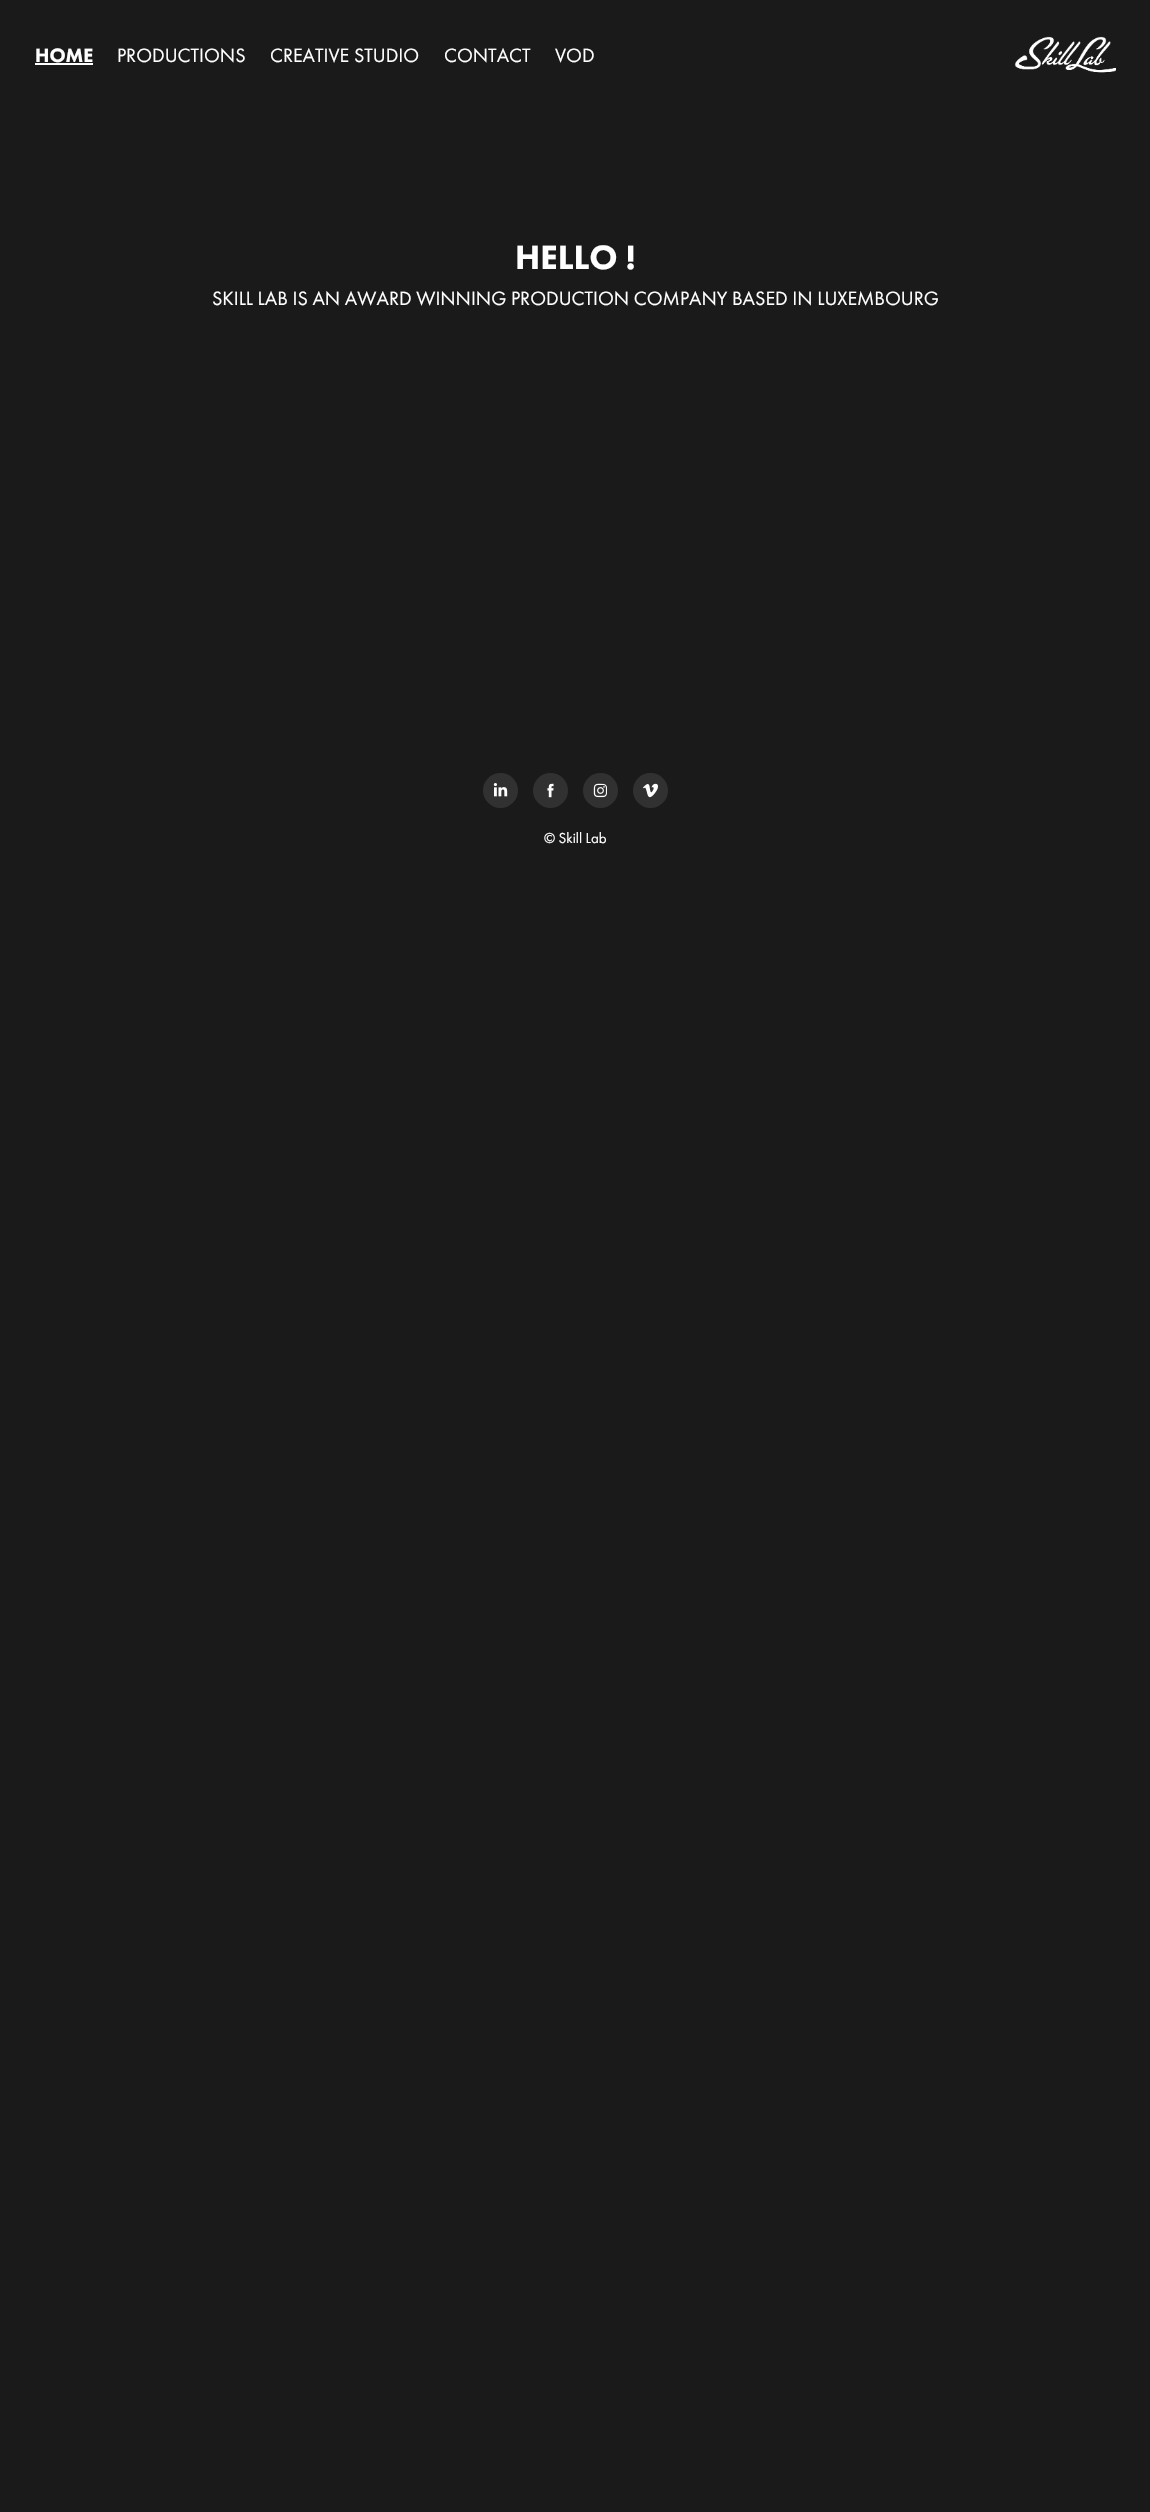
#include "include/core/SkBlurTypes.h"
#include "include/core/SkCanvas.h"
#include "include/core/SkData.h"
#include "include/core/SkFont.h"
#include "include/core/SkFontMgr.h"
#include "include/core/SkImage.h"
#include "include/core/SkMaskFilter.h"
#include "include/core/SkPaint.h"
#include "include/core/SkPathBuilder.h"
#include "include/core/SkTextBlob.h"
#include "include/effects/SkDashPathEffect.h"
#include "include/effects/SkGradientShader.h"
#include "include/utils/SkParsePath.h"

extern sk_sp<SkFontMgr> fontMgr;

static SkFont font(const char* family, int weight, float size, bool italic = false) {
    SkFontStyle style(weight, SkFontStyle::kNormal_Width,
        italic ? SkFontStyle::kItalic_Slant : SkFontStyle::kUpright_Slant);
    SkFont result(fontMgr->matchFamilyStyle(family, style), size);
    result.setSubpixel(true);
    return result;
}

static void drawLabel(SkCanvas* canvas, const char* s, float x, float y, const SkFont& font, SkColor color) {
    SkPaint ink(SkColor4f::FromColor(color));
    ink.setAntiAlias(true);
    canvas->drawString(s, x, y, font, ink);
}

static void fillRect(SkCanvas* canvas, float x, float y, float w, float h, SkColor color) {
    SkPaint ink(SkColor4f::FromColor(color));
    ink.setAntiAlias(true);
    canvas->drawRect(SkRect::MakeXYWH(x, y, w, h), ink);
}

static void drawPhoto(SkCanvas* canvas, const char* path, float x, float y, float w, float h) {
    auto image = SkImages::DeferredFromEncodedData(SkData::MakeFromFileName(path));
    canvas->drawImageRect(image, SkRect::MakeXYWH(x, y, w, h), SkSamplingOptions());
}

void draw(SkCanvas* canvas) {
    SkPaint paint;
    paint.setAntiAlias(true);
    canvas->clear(0xFF1A1A1A);
    SkFont font1 = font("Futura PT", 900, 20);
    drawLabel(canvas, "HOME", 35, 62, font1, 0xFFFFFFFF);
    fillRect(canvas, 35, 63, 58, 2, 0xFFFFFFFF);
    SkFont font2 = font("Futura PT", 400, 20);
    drawLabel(canvas, "PRODUCTIONS", 117, 62, font2, 0xFFFFFFFF);
    drawLabel(canvas, "CREATIVE STUDIO", 270, 62, font2, 0xFFFFFFFF);
    drawLabel(canvas, "CONTACT", 444, 62, font2, 0xFFFFFFFF);
    drawLabel(canvas, "VOD", 555, 62, font2, 0xFFFFFFFF);
    drawPhoto(canvas, "assets/img1.png", 1014, 36, 102, 37);
    SkFont font3 = font("Futura PT", 900, 35);
    drawLabel(canvas, "HELLO !", 515, 269, font3, 0xFFFFFFFF);
    drawLabel(canvas, "SKILL LAB IS AN AWARD WINNING PRODUCTION COMPANY BASED IN LUXEMBOURG", 212, 305, font2, 0xFFFFFFFF);
    paint.setColor(0xFF313131);
    canvas->drawCircle(500.5f, 790.5f, 17.5f, paint);
    drawPhoto(canvas, "assets/img2.png", 493, 783, 15, 14);
    canvas->drawCircle(550.5f, 790.5f, 17.5f, paint);
    drawPhoto(canvas, "assets/img3.png", 547, 783, 7, 15);
    canvas->drawCircle(600.5f, 790.5f, 17.5f, paint);
    drawPhoto(canvas, "assets/img4.png", 593, 783, 14, 15);
    canvas->drawCircle(650.5f, 790.5f, 17.5f, paint);
    drawPhoto(canvas, "assets/img5.png", 643, 783, 15, 15);
    SkFont font4 = font("Futura PT", 400, 15);
    drawLabel(canvas, "© Skill Lab", 544, 843, font4, 0xFFFFFFFF);
}
